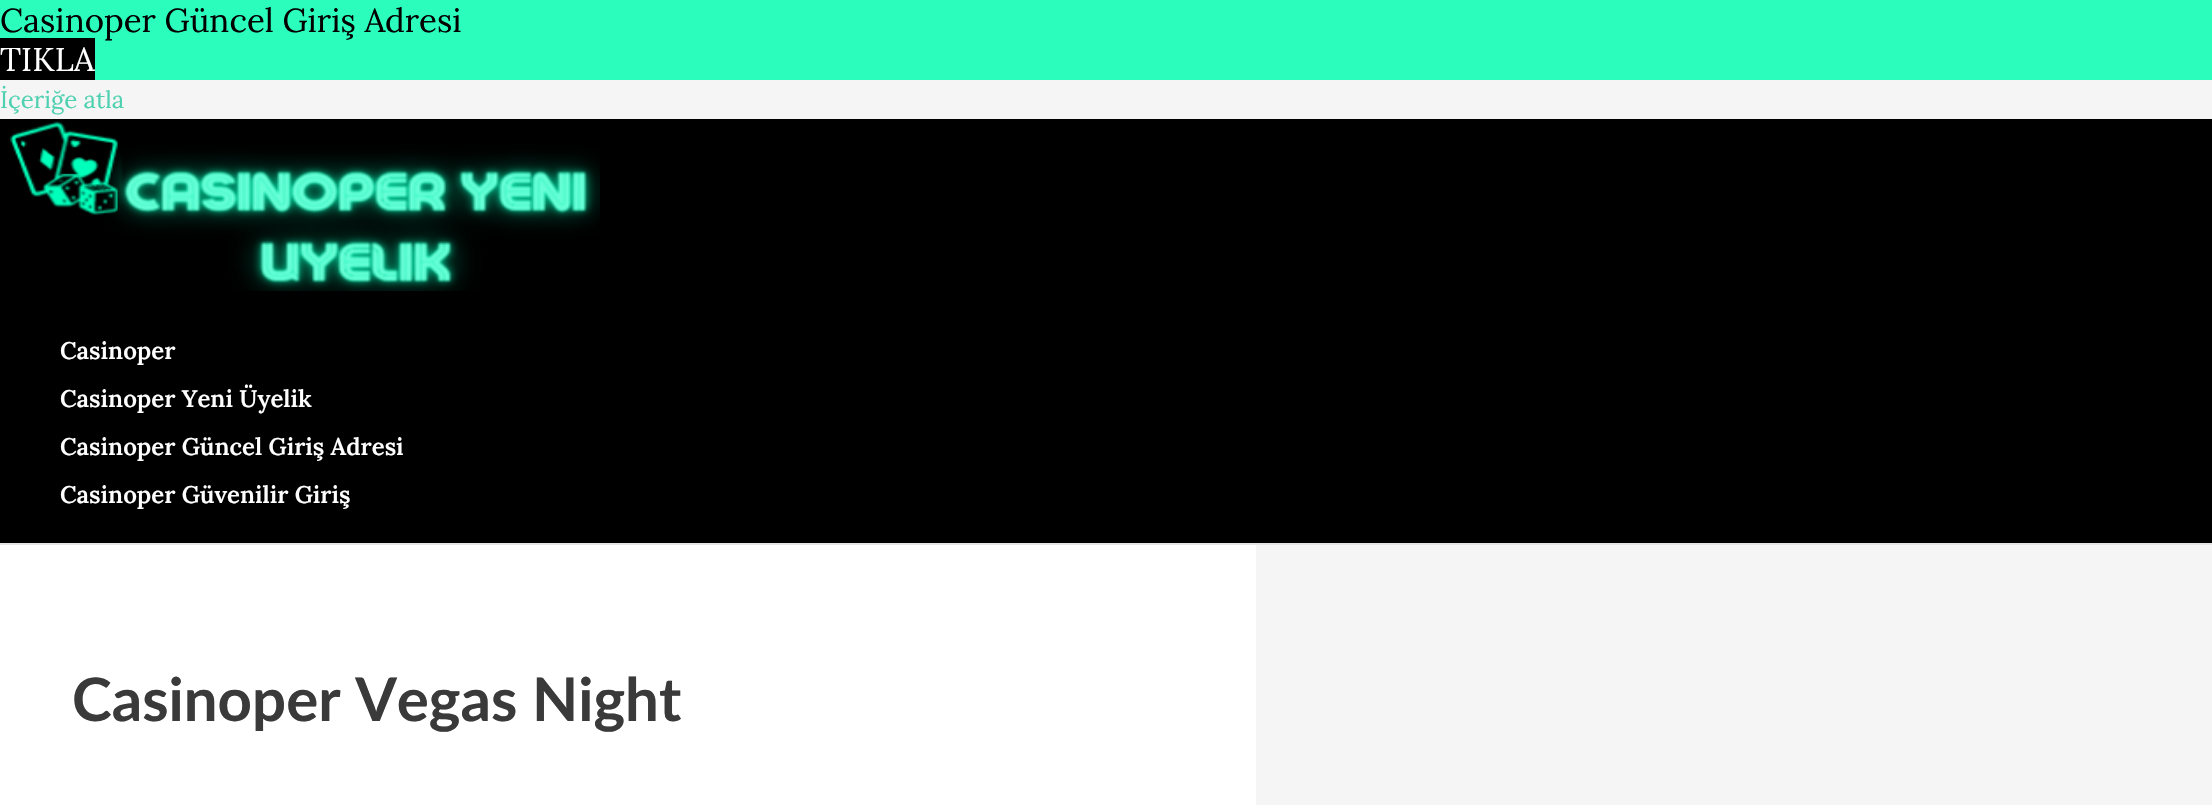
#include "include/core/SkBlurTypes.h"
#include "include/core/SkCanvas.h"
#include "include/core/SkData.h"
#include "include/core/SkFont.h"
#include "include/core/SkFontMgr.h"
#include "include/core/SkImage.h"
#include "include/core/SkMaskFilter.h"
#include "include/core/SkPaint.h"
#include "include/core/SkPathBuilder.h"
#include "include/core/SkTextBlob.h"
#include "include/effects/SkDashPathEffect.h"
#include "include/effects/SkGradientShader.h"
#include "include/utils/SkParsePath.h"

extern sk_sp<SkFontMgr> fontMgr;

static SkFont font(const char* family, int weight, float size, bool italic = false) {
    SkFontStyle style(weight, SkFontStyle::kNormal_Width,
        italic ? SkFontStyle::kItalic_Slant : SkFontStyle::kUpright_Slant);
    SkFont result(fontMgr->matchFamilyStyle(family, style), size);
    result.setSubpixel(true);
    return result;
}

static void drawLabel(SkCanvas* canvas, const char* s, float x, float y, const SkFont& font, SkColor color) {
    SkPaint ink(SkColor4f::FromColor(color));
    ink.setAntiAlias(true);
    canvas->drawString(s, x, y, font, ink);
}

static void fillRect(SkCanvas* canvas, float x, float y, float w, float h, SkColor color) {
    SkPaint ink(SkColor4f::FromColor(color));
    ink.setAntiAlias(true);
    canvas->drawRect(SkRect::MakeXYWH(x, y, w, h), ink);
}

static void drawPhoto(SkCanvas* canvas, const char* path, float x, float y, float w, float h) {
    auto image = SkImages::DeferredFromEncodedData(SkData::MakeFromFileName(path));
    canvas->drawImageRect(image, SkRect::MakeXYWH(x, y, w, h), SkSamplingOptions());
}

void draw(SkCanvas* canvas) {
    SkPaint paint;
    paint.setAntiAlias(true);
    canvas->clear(0xFFF5F5F5);
    fillRect(canvas, 0, 0, 2212, 80, 0xFF2AFDBC);
    SkFont font1 = font("Lora", 400, 33);
    drawLabel(canvas, "Casinoper Güncel Giriş Adresi", 0, 32, font1, 0xFF000000);
    fillRect(canvas, 0, 38, 95, 42, 0xFF000000);
    drawLabel(canvas, "TIKLA", 0, 71, font1, 0xFFFFFFFF);
    SkFont font2 = font("Lora", 400, 24);
    drawLabel(canvas, "İçeriğe atla", 0, 108, font2, 0xFF4ED1B0);
    fillRect(canvas, 0, 119, 2212, 424, 0xFF000000);
    fillRect(canvas, 0, 543, 2212, 2, 0xFFE5E5E5);
    drawPhoto(canvas, "assets/img1.png", 9, 121, 591, 170);
    SkFont font3 = font("Lora", 600, 24);
    drawLabel(canvas, "Casinoper", 60, 359, font3, 0xFFFFFFFF);
    drawLabel(canvas, "Casinoper Yeni Üyelik", 60, 407, font3, 0xFFFFFFFF);
    drawLabel(canvas, "Casinoper Güncel Giriş Adresi", 60, 455, font3, 0xFFFFFFFF);
    drawLabel(canvas, "Casinoper Güvenilir Giriş", 60, 503, font3, 0xFFFFFFFF);
    fillRect(canvas, 0, 545, 1256, 260, 0xFFFFFFFF);
    SkFont font4 = font("Lato", 700, 60);
    drawLabel(canvas, "Casinoper Vegas Night", 72, 721, font4, 0xFF3A3A3A);
}
